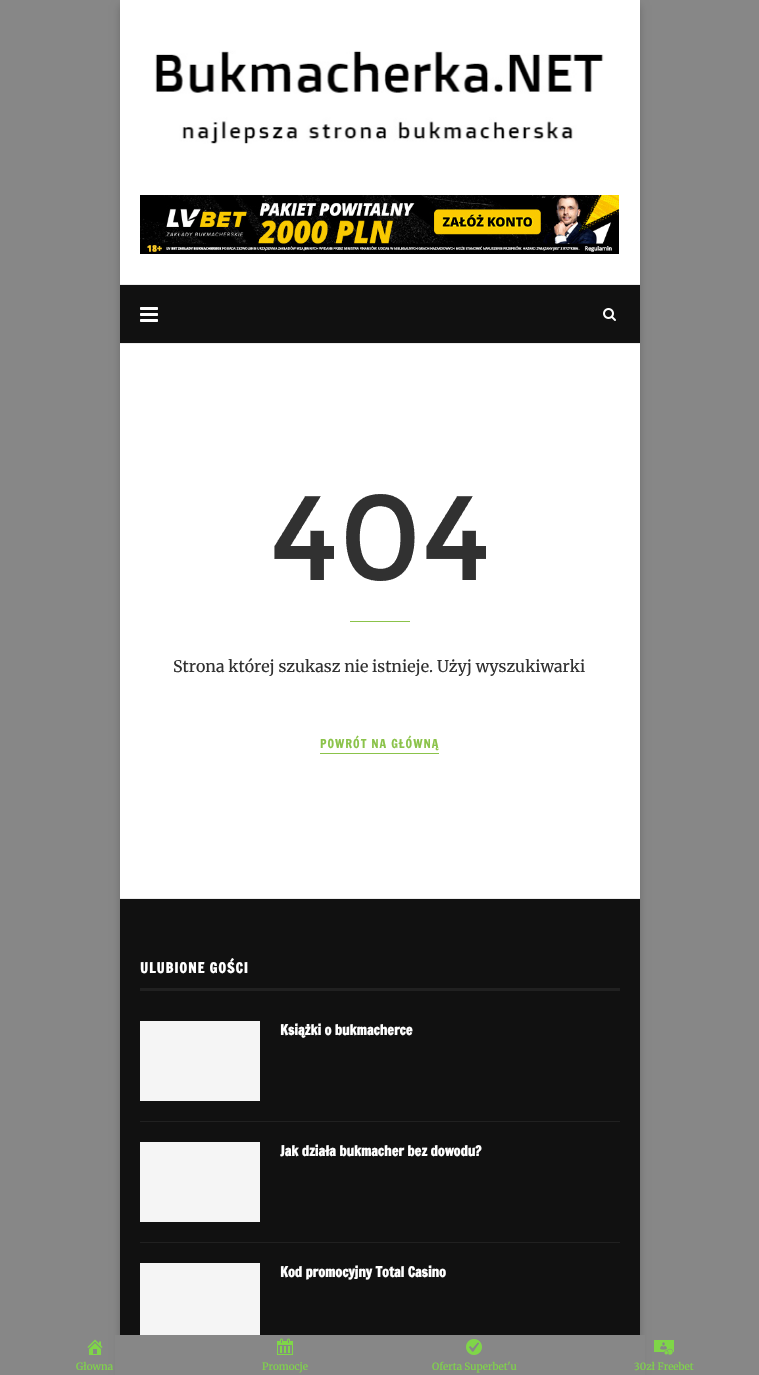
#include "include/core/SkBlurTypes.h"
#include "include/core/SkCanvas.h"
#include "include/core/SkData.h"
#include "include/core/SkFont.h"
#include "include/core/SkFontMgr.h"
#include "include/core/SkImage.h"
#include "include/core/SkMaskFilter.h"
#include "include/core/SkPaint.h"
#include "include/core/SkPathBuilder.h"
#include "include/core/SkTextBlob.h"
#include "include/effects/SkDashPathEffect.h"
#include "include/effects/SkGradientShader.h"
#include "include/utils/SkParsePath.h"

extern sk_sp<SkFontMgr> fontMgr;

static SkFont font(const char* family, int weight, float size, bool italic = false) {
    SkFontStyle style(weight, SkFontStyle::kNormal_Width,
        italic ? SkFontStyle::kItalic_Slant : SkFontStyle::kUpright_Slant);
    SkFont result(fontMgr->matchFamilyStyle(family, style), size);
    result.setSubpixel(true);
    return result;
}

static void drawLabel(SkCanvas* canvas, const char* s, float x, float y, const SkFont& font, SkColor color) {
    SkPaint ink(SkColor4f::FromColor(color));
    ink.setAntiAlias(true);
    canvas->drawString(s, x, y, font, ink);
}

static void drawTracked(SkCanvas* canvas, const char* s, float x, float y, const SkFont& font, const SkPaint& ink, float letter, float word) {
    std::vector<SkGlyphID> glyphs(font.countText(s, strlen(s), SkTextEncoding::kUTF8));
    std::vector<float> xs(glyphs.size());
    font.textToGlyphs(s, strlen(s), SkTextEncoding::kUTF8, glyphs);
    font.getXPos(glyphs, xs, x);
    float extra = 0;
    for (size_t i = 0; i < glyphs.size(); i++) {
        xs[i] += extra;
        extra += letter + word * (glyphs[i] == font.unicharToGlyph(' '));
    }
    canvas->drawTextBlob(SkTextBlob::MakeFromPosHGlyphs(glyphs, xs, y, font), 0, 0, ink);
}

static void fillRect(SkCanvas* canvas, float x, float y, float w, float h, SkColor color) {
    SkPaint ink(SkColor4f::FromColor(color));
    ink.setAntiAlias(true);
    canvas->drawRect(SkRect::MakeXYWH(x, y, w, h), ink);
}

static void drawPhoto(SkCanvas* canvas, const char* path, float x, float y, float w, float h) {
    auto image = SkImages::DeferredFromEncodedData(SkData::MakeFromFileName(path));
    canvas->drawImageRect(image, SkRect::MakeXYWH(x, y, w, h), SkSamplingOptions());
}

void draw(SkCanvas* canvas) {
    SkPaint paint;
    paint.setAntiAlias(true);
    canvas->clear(0xFF878787);
    paint.setColor(0x33000000);
    paint.setMaskFilter(SkMaskFilter::MakeBlur(kNormal_SkBlurStyle, 4));
    canvas->drawRect(SkRect::MakeXYWH(120, 5, 520, 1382), paint);
    paint.setMaskFilter(nullptr);
    fillRect(canvas, 120, 0, 520, 898, 0xFFFFFFFF);
    drawPhoto(canvas, "assets/img1.png", 155, 50, 449, 94);
    drawPhoto(canvas, "assets/img2.png", 140, 195, 479, 59);
    fillRect(canvas, 120, 285, 520, 58, 0xFF111111);
    fillRect(canvas, 120, 284, 520, 1, 0xFFECECEC);
    fillRect(canvas, 120, 343, 520, 1, 0xFFECECEC);
    drawPhoto(canvas, "assets/img3.png", 140, 307, 18, 15);
    drawPhoto(canvas, "assets/img4.png", 603, 308, 13, 13);
    drawPhoto(canvas, "assets/img5.png", 274, 494, 212, 87);
    fillRect(canvas, 350, 621, 60, 1, 0xFF8BC34A);
    SkFont font1 = font("Merriweather", 400, 16);
    drawLabel(canvas, "Strona której szukasz nie istnieje. Użyj wyszukiwarki", 173, 672, font1, 0xFF313131);
    SkFont font2 = font("Francois One", 400, 12);
    paint.setColor(0xFF8BC34A);
    drawTracked(canvas, "POWRÓT NA GŁÓWNĄ", 320, 748, font2, paint, 1, 0);
    fillRect(canvas, 320, 753, 119, 1, 0xFF8BC34A);
    fillRect(canvas, 120, 899, 520, 436, 0xFF111111);
    fillRect(canvas, 120, 898, 520, 1, 0xFFECECEC);
    fillRect(canvas, 140, 988, 480, 3, 0xFF212121);
    SkFont font3 = font("Francois One", 700, 14);
    paint.setColor(0xFFFFFFFF);
    drawTracked(canvas, "ULUBIONE GOŚCI", 140, 973, font3, paint, 1, 0);
    fillRect(canvas, 140, 1121, 480, 1, 0xFF212121);
    fillRect(canvas, 140, 1021, 120, 80, 0xFFF5F5F5);
    drawLabel(canvas, "Książki o bukmacherce", 280, 1035, font3, 0xFFFFFFFF);
    fillRect(canvas, 140, 1242, 480, 1, 0xFF212121);
    fillRect(canvas, 140, 1142, 120, 80, 0xFFF5F5F5);
    drawLabel(canvas, "Jak działa bukmacher bez dowodu?", 280, 1156, font3, 0xFFFFFFFF);
    fillRect(canvas, 140, 1263, 120, 72, 0xFFF5F5F5);
    drawLabel(canvas, "Kod promocyjny Total Casino", 280, 1277, font3, 0xFFFFFFFF);
    fillRect(canvas, 115, 1335, 530, 40, 0xFF878787);
    drawPhoto(canvas, "assets/img6.png", 87, 1339, 16, 16);
    SkFont font4 = font("Merriweather", 400, 10);
    drawLabel(canvas, "Głowna", 76, 1370, font4, 0xFF7FD648);
    drawPhoto(canvas, "assets/img7.png", 277, 1338, 16, 17);
    drawLabel(canvas, "Promocje", 262, 1370, font4, 0xFF7FD648);
    drawPhoto(canvas, "assets/img8.png", 466, 1339, 16, 16);
    drawLabel(canvas, "Oferta Superbet'u", 432, 1370, font4, 0xFF7FD648);
    drawPhoto(canvas, "assets/img9.png", 654, 1340, 20, 15);
    drawLabel(canvas, "30zł Freebet", 634, 1370, font4, 0xFF7FD648);
}
